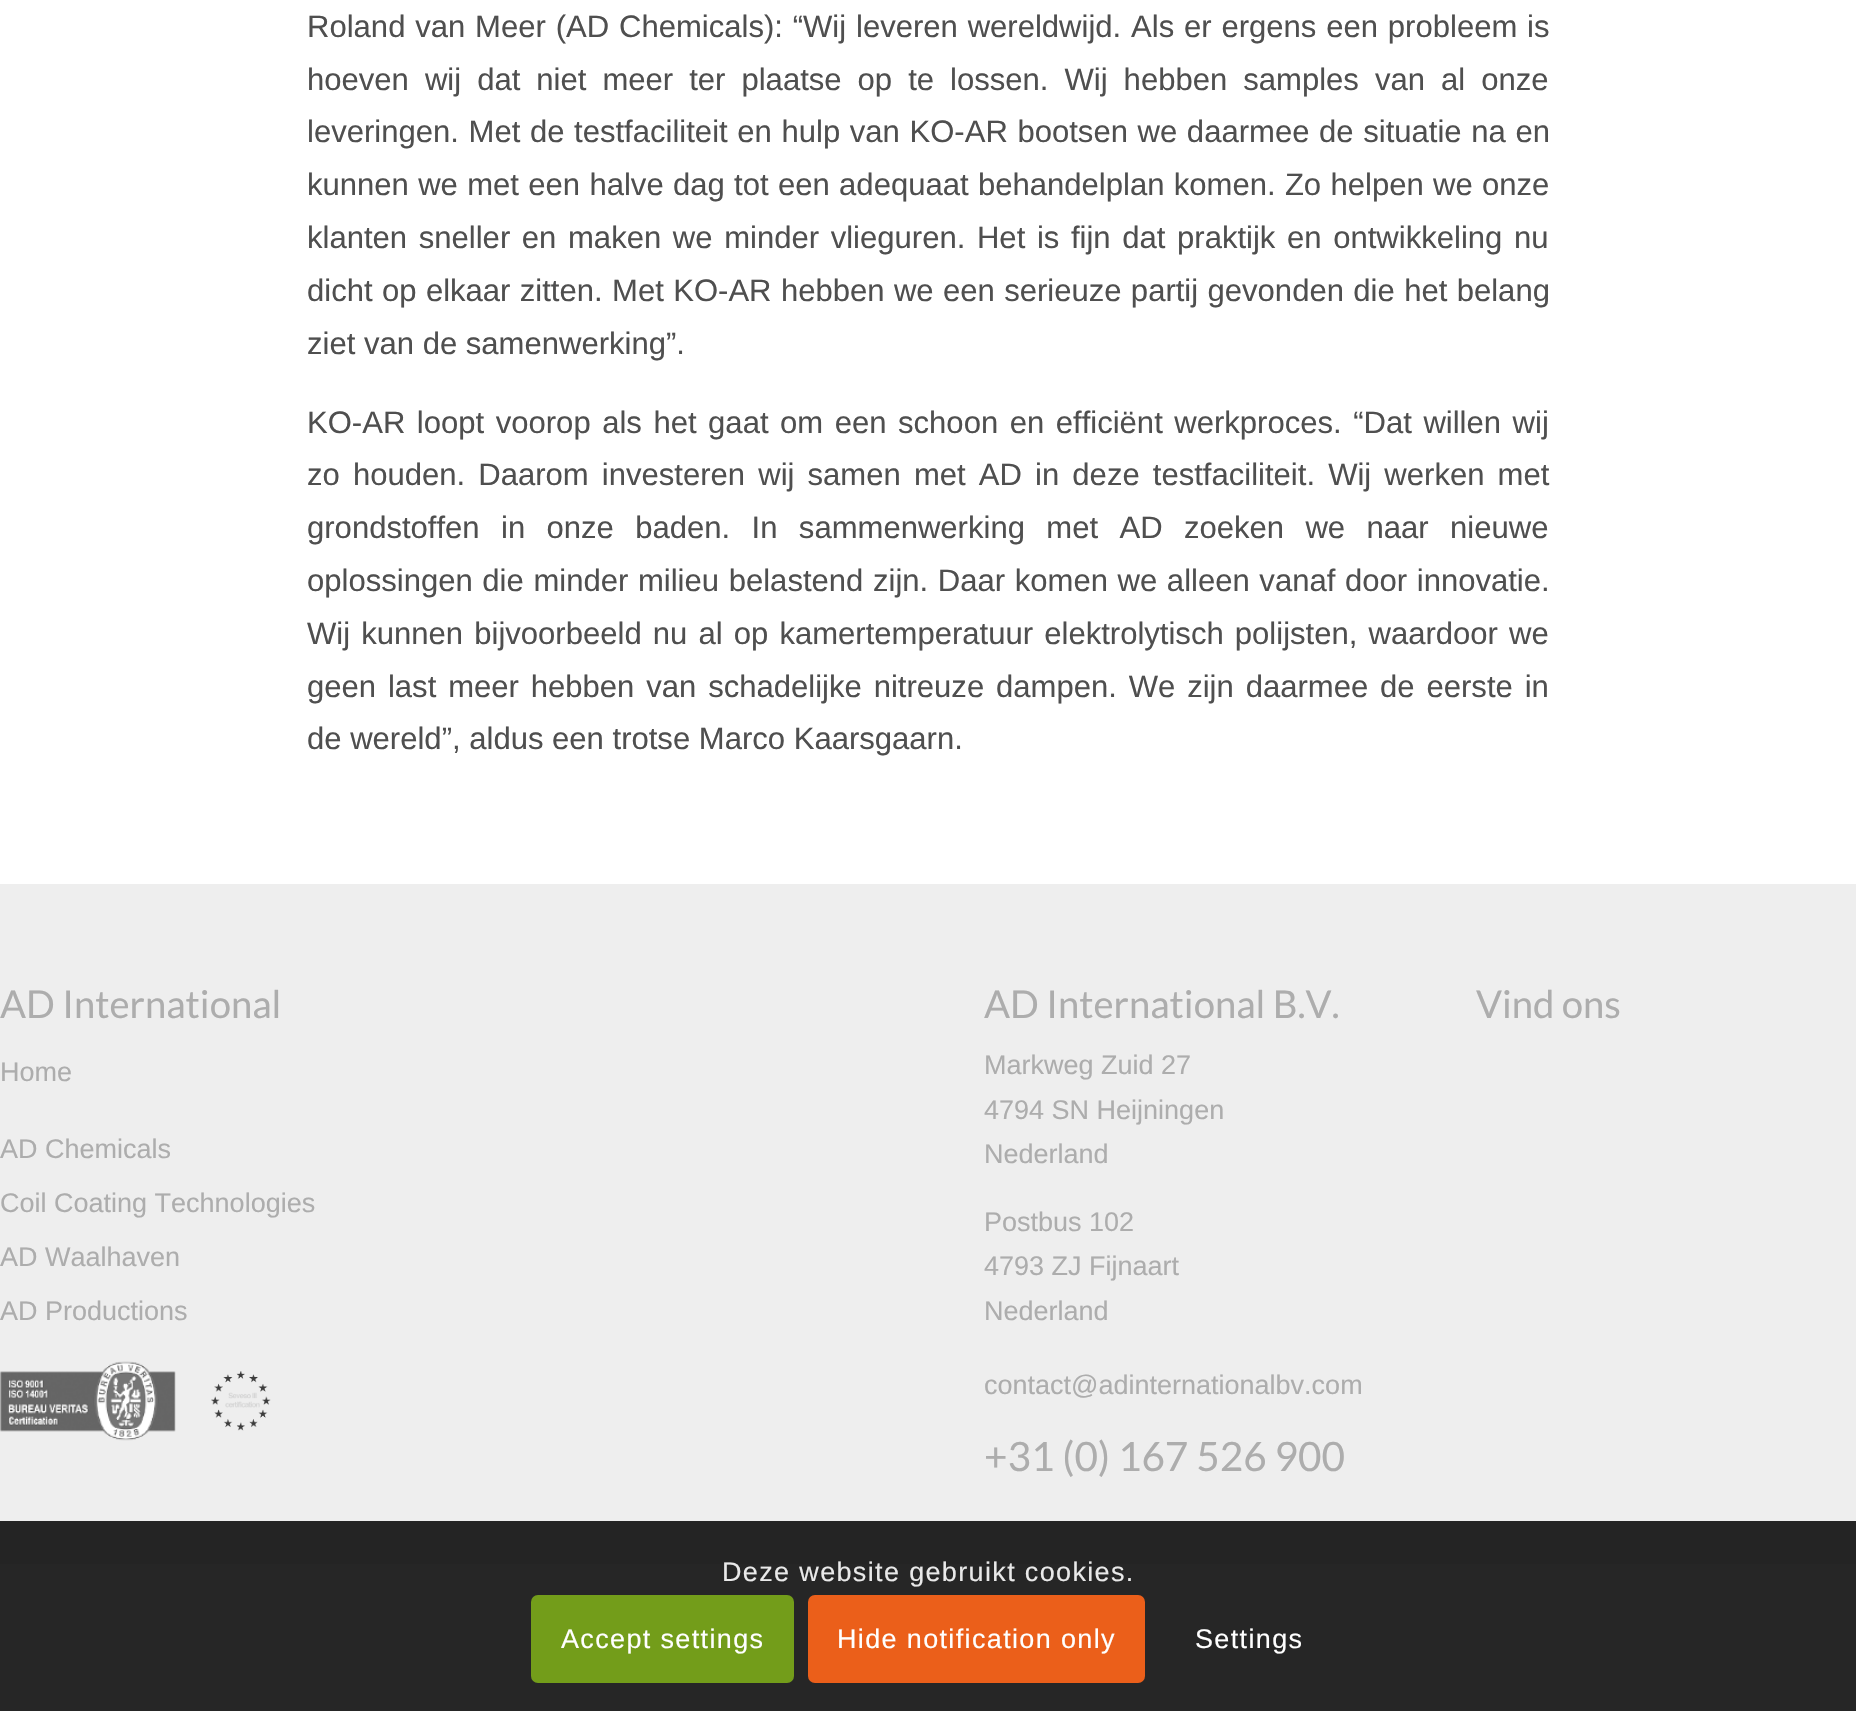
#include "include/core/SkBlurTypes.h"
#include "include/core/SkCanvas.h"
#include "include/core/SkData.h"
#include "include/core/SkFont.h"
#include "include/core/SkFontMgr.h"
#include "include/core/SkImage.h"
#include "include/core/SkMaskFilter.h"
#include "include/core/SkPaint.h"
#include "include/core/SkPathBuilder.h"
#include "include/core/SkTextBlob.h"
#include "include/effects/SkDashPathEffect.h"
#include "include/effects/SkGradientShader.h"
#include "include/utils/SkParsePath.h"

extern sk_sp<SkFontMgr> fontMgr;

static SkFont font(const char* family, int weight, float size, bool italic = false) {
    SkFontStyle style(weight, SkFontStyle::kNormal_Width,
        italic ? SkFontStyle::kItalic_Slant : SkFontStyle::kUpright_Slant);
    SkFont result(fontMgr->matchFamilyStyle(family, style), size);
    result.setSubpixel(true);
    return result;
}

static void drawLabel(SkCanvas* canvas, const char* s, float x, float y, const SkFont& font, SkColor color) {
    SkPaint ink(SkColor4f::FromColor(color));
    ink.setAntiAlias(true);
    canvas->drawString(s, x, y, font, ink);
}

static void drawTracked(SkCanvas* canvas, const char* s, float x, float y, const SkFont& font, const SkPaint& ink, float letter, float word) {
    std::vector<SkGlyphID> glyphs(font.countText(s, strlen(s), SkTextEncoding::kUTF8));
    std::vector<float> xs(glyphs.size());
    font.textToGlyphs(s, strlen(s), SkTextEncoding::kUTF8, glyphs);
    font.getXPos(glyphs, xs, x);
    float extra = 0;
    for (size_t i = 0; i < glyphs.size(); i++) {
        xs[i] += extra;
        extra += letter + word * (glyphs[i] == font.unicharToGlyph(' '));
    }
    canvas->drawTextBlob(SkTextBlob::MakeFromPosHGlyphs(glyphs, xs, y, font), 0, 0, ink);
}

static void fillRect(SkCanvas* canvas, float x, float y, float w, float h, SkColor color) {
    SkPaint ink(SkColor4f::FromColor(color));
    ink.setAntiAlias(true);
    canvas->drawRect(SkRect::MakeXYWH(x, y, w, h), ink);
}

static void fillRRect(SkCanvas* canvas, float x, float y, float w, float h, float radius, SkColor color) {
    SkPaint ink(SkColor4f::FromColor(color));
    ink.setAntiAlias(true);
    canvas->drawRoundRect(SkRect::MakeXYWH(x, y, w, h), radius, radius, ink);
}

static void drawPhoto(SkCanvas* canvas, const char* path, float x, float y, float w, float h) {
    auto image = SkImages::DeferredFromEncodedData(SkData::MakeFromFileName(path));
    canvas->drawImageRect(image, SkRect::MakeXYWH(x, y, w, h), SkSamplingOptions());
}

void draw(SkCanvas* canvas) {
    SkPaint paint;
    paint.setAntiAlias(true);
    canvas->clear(0xFFFFFFFF);
    fillRect(canvas, 0, 1564, 1856, 147, 0xFF262626);
    SkFont font1 = font("Liberation Sans", 400, 31.05f);
    paint.setColor(0xFF4F4F4F);
    drawTracked(canvas, "Roland van Meer (AD Chemicals): “Wij leveren wereldwijd. Als er ergens een probleem is", 307, 37, font1, paint, 0, 1.2f);
    drawTracked(canvas, "hoeven wij dat niet meer ter plaatse op te lossen. Wij hebben samples van al onze", 307, 90, font1, paint, 0, 7.4f);
    drawTracked(canvas, "leveringen. Met de testfaciliteit en hulp van KO-AR bootsen we daarmee de situatie na en", 307, 142, font1, paint, 0, 1);
    drawTracked(canvas, "kunnen we met een halve dag tot een adequaat behandelplan komen. Zo helpen we onze", 307, 195, font1, paint, 0, 0.7f);
    drawTracked(canvas, "klanten sneller en maken we minder vlieguren. Het is fijn dat praktijk en ontwikkeling nu", 307, 248, font1, paint, 0, 3);
    drawTracked(canvas, "dicht op elkaar zitten. Met KO-AR hebben we een serieuze partij gevonden die het belang", 307, 301, font1, paint, 0, 0.75f);
    drawLabel(canvas, "ziet van de samenwerking”.", 307, 354, font1, 0xFF4F4F4F);
    drawTracked(canvas, "KO-AR loopt voorop als het gaat om een schoon en efficiënt werkproces. “Dat willen wij", 307, 433, font1, paint, 0, 2.9f);
    drawTracked(canvas, "zo houden. Daarom investeren wij samen met AD in deze testfaciliteit. Wij werken met", 307, 485, font1, paint, 0, 4.5f);
    drawTracked(canvas, "grondstoffen in onze baden. In sammenwerking met AD zoeken we naar nieuwe", 307, 538, font1, paint, 0, 12.75f);
    drawTracked(canvas, "oplossingen die minder milieu belastend zijn. Daar komen we alleen vanaf door innovatie.", 307, 591, font1, paint, 0, 1);
    drawTracked(canvas, "Wij kunnen bijvoorbeeld nu al op kamertemperatuur elektrolytisch polijsten, waardoor we", 307, 644, font1, paint, 0, 2.5f);
    drawTracked(canvas, "geen last meer hebben van schadelijke nitreuze dampen. We zijn daarmee de eerste in", 307, 697, font1, paint, 0, 3.25f);
    drawLabel(canvas, "de wereld”, aldus een trotse Marco Kaarsgaarn.", 307, 749, font1, 0xFF4F4F4F);
    fillRect(canvas, 0, 884, 1856, 637, 0xFFEEEEEE);
    fillRect(canvas, 0, 1521, 1856, 43, 0xFF242424);
    SkFont font2 = font("Lato", 400, 38.25f);
    drawLabel(canvas, "AD International", 0, 1018, font2, 0xFFADADAD);
    SkFont font3 = font("Liberation Sans", 400, 27);
    drawLabel(canvas, "Home", 0, 1081, font3, 0xFFADADAD);
    drawLabel(canvas, "AD Chemicals", 0, 1158, font3, 0xFFADADAD);
    drawLabel(canvas, "Coil Coating Technologies", 0, 1212, font3, 0xFFADADAD);
    drawLabel(canvas, "AD Waalhaven", 0, 1266, font3, 0xFFADADAD);
    drawLabel(canvas, "AD Productions", 0, 1320, font3, 0xFFADADAD);
    drawPhoto(canvas, "assets/img1.png", 0, 1361, 176, 80);
    drawPhoto(canvas, "assets/img2.png", 211, 1371, 60, 60);
    drawLabel(canvas, "AD International B.V.", 984, 1018, font2, 0xFFADADAD);
    drawLabel(canvas, "Markweg Zuid 27", 984, 1074, font3, 0xFFADADAD);
    drawLabel(canvas, "4794 SN Heijningen", 984, 1119, font3, 0xFFADADAD);
    drawLabel(canvas, "Nederland", 984, 1163, font3, 0xFFADADAD);
    drawLabel(canvas, "Postbus 102", 984, 1231, font3, 0xFFADADAD);
    drawLabel(canvas, "4793 ZJ Fijnaart", 984, 1275, font3, 0xFFADADAD);
    drawLabel(canvas, "Nederland", 984, 1320, font3, 0xFFADADAD);
    drawLabel(canvas, "contact@adinternationalbv.com", 984, 1394, font3, 0xFFADADAD);
    SkFont font4 = font("Lato", 400, 40.5f);
    drawLabel(canvas, "+31 (0) 167 526 900", 984, 1471, font4, 0xFFADADAD);
    drawLabel(canvas, "Vind ons", 1476, 1018, font2, 0xFFADADAD);
    paint.setColor(0xFFE9E9E9);
    drawTracked(canvas, "Deze website gebruikt cookies.", 722, 1581, font3, paint, 1.35f, 0);
    fillRRect(canvas, 531, 1595, 263, 88, 7, 0xFF739D1A);
    paint.setColor(0xFFFFFFFF);
    drawTracked(canvas, "Accept settings", 561, 1648, font3, paint, 1.35f, 0);
    fillRRect(canvas, 808, 1595, 337, 88, 7, 0xFFEB5F1A);
    drawTracked(canvas, "Hide notification only", 837, 1648, font3, paint, 1.35f, 0);
    drawTracked(canvas, "Settings", 1195, 1648, font3, paint, 1.35f, 0);
}
